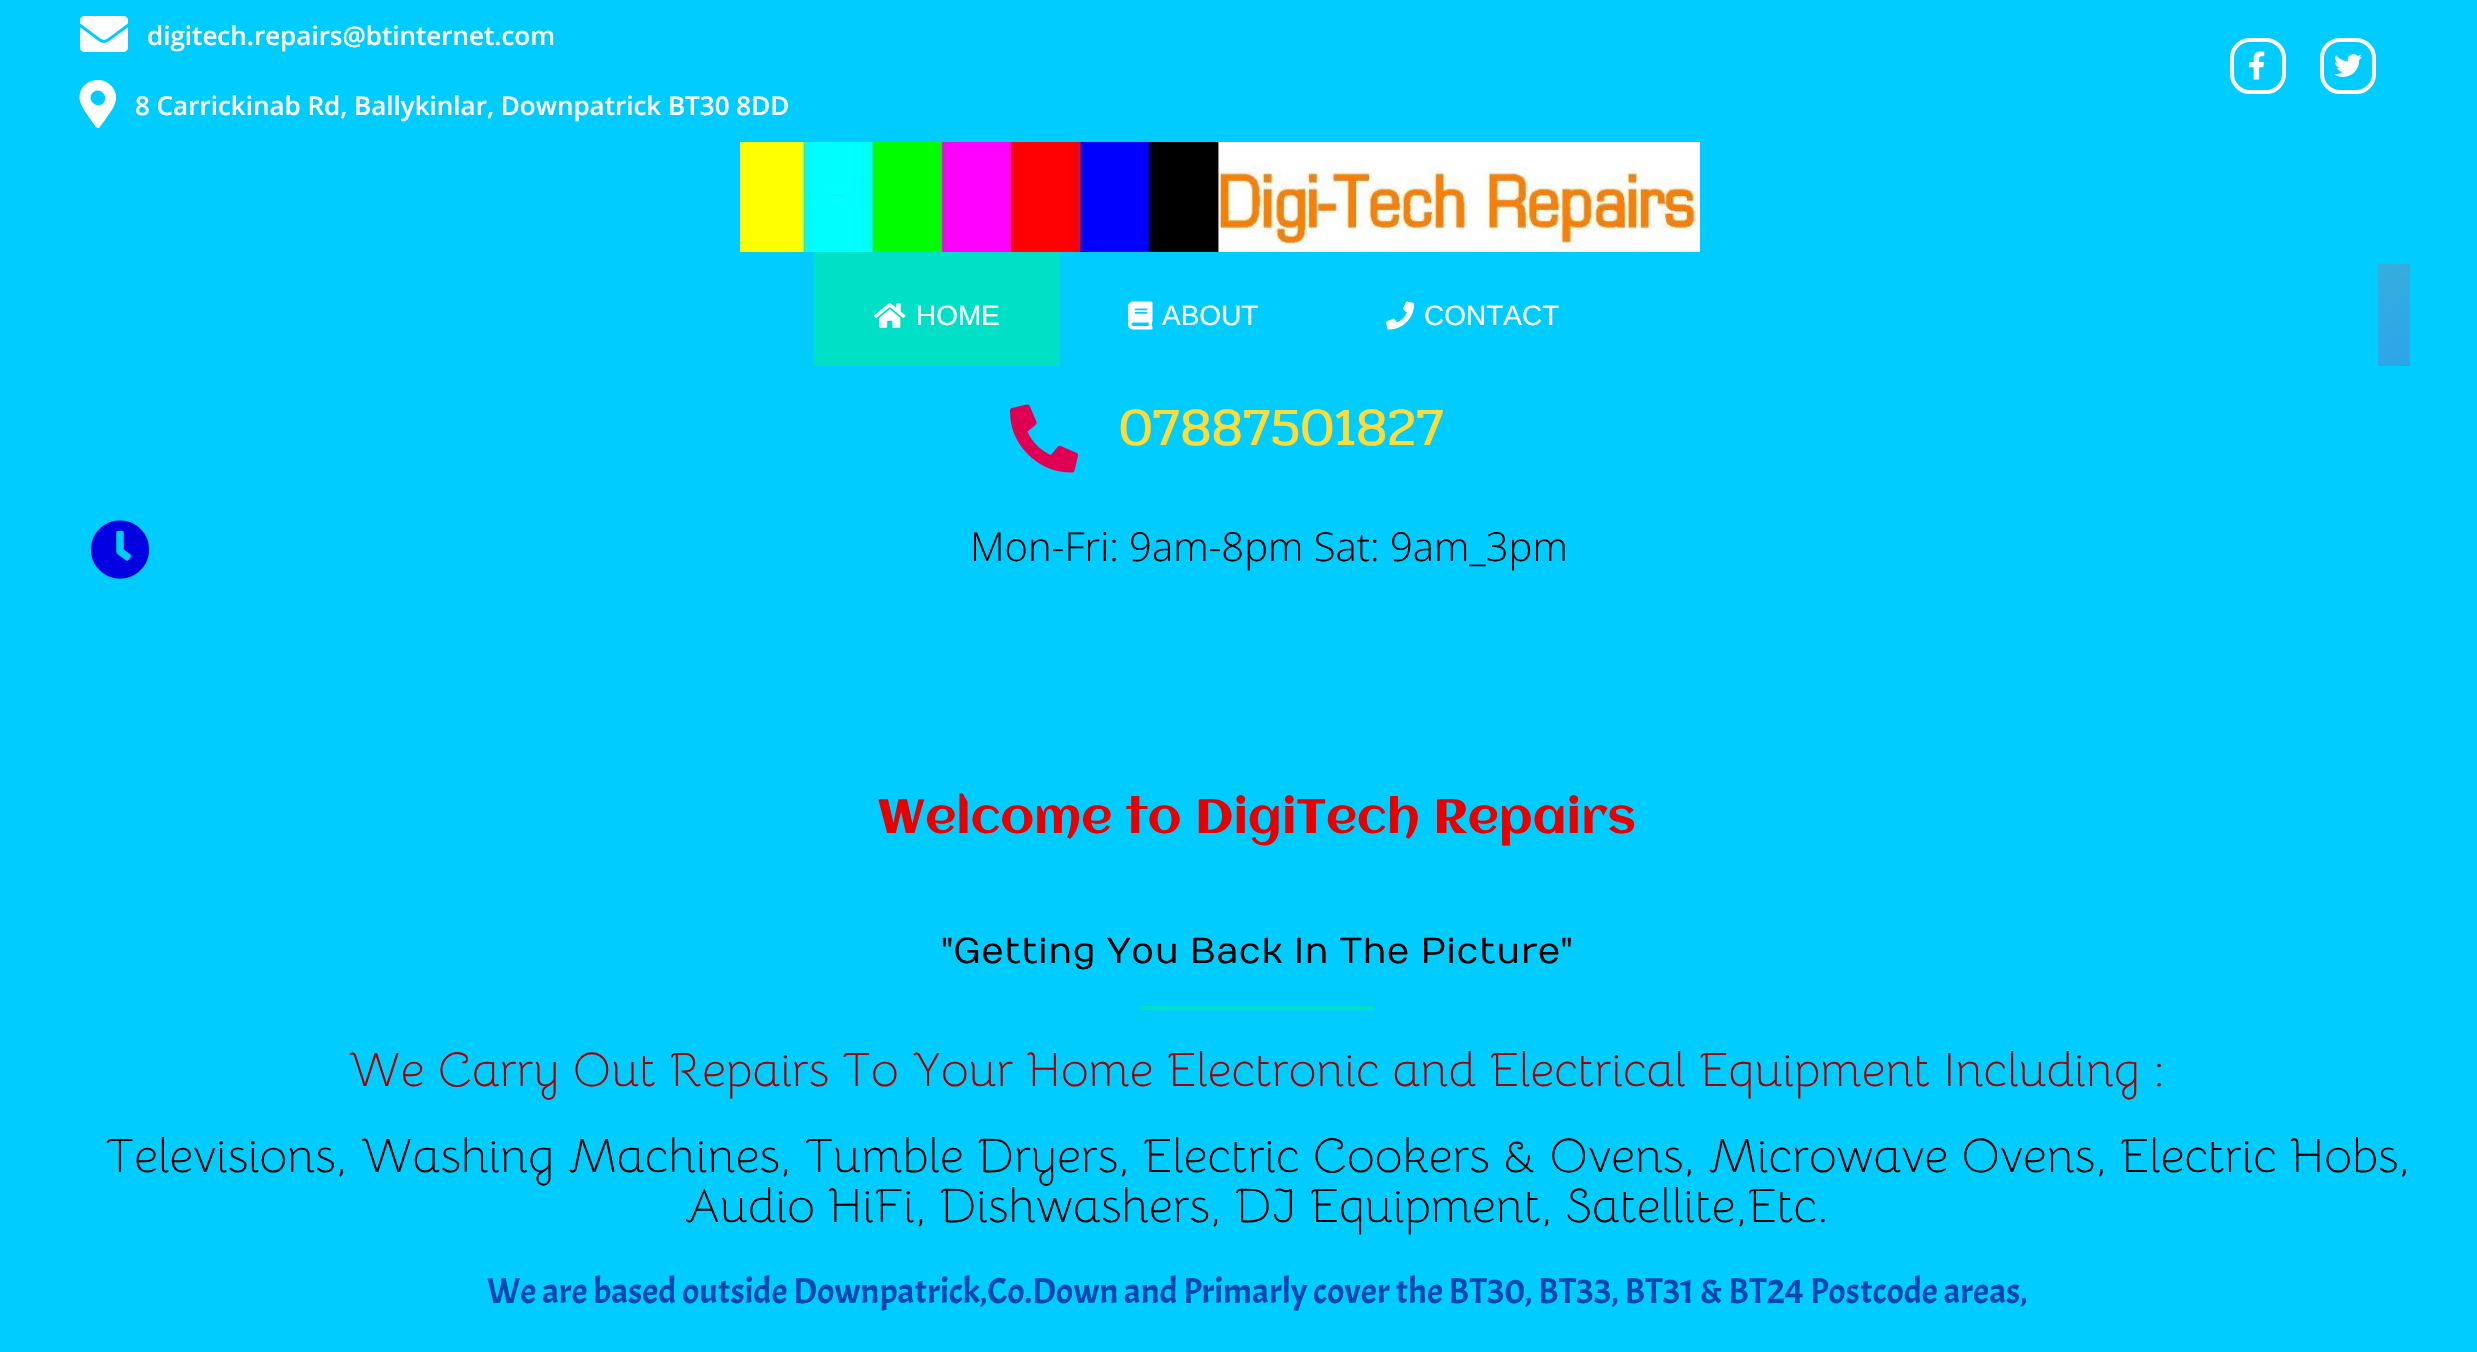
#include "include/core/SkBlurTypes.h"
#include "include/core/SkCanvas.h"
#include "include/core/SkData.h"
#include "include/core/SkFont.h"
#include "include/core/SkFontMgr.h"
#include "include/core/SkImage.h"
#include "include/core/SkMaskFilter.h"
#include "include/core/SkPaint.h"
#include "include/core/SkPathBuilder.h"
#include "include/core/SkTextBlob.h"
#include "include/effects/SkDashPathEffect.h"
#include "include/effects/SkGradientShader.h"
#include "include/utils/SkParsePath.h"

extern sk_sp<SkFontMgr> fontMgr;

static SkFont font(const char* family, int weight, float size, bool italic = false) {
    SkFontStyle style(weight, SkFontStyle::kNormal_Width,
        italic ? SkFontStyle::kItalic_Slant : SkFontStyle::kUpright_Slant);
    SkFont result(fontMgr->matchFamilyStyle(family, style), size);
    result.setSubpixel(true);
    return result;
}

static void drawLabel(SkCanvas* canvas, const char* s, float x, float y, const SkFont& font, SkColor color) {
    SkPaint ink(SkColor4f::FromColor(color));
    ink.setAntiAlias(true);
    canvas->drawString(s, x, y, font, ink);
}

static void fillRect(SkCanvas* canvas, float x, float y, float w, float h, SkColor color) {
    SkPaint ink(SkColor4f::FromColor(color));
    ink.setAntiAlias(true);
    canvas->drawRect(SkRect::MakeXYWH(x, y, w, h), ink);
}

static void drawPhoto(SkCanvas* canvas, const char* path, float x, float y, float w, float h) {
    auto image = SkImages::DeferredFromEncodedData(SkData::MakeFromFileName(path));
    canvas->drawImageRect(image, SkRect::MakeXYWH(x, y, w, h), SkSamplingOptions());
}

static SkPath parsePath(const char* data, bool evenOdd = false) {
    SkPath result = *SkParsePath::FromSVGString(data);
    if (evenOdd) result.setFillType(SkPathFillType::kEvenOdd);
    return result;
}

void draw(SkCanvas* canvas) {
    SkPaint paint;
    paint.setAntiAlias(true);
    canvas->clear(0xFF00CCFF);
    drawPhoto(canvas, "assets/img1.png", 80, 16, 48, 36);
    SkFont font1 = font("Open Sans", 600, 26);
    drawLabel(canvas, "digitech.repairs@btinternet.com", 147, 45, font1, 0xFFFFFFFF);
    paint.setColor(0xFFFFFFFF);
    canvas->drawPath(parsePath("M96 127C92 121 82 109 80 101C76 82 102 72 113 88C121 100 112 110 105 120L99 128C98 128 97 128 96 127ZM93 103C100 110 110 100 103 93C96 86 86 96 93 103Z"), paint);
    drawLabel(canvas, "8 Carrickinab Rd, Ballykinlar, Downpatrick BT30 8DD", 135, 115, font1, 0xFFFFFFFF);
    paint.setStroke(true);
    paint.setStrokeWidth(4);
    canvas->drawRoundRect(SkRect::MakeXYWH(2232, 40, 52, 52), 18, 18, paint);
    drawPhoto(canvas, "assets/img2.png", 2249, 51, 16, 29);
    canvas->drawRoundRect(SkRect::MakeXYWH(2322, 40, 52, 52), 18, 18, paint);
    drawPhoto(canvas, "assets/img3.png", 2334, 54, 28, 23);
    drawPhoto(canvas, "assets/img4.png", 740, 142, 960, 110);
    paint.setStroke(false);
    {
        const SkColor colors[] = {0xFF44D3F6, 0xFF72E584, 0xFF2CA4EB};
        const float stops[] = {0.23f, 0.45f, 1};
        const SkPoint ends[] = {{925, -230}, {1555, 860}};
        paint.setShader(SkGradientShader::MakeLinear(ends, colors, stops, 3, SkTileMode::kClamp));
        paint.setAlpha(255);
    }
    canvas->drawRect(SkRect::MakeXYWH(2378, 264, 32, 102), paint);
    fillRect(canvas, 814, 252, 246, 114, 0xFF00E0C6);
    drawPhoto(canvas, "assets/img5.png", 874, 303, 32, 25);
    SkFont font2 = font("Liberation Sans", 400, 28);
    drawLabel(canvas, "HOME", 916, 325, font2, 0xFFFFFFFF);
    drawPhoto(canvas, "assets/img6.png", 1128, 301, 25, 29);
    drawLabel(canvas, "ABOUT", 1162, 325, font2, 0xFFFFFFFF);
    drawPhoto(canvas, "assets/img7.png", 1386, 301, 29, 29);
    drawLabel(canvas, "CONTACT", 1424, 325, font2, 0xFFFFFFFF);
    drawPhoto(canvas, "assets/img8.png", 1010, 404, 68, 69);
    SkFont font3 = font("Pridi", 400, 54);
    drawLabel(canvas, "07887501827", 1119, 445, font3, 0xFFFADC3B);
    drawPhoto(canvas, "assets/img9.png", 90, 520, 60, 59);
    SkFont font4 = font("Open Sans", 300, 40);
    drawLabel(canvas, "Mon-Fri: 9am-8pm Sat: 9am_3pm", 970, 561, font4, 0xFF000000);
    SkFont font5 = font("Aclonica", 400, 48);
    drawLabel(canvas, "Welcome to DigiTech Repairs", 877, 833, font5, 0xFFE60000);
    SkFont font6 = font("Numans", 400, 36);
    drawLabel(canvas, "\"Getting You Back In The Picture\"", 941, 963, font6, 0xFF000000);
    fillRect(canvas, 1140, 1006, 234, 4, 0xFF00E0C6);
    SkFont font7 = font("Bellota", 300, 48);
    drawLabel(canvas, "We Carry Out Repairs To Your Home Electronic and Electrical Equipment Including :", 348, 1086, font7, 0xFFA10000);
    drawLabel(canvas, "Televisions, Washing Machines, Tumble Dryers, Electric Cookers & Ovens, Microwave Ovens, Electric Hobs,", 105, 1172, font7, 0xFF000000);
    drawLabel(canvas, "Audio HiFi, Dishwashers, DJ Equipment, Satellite,Etc.", 684, 1222, font7, 0xFF000000);
    SkFont font8 = font("Acme", 400, 36);
    drawLabel(canvas, "We are based outside Downpatrick,Co.Down and Primarly cover the BT30, BT33, BT31 & BT24 Postcode areas,", 487, 1303, font8, 0xFF0047B2);
}
